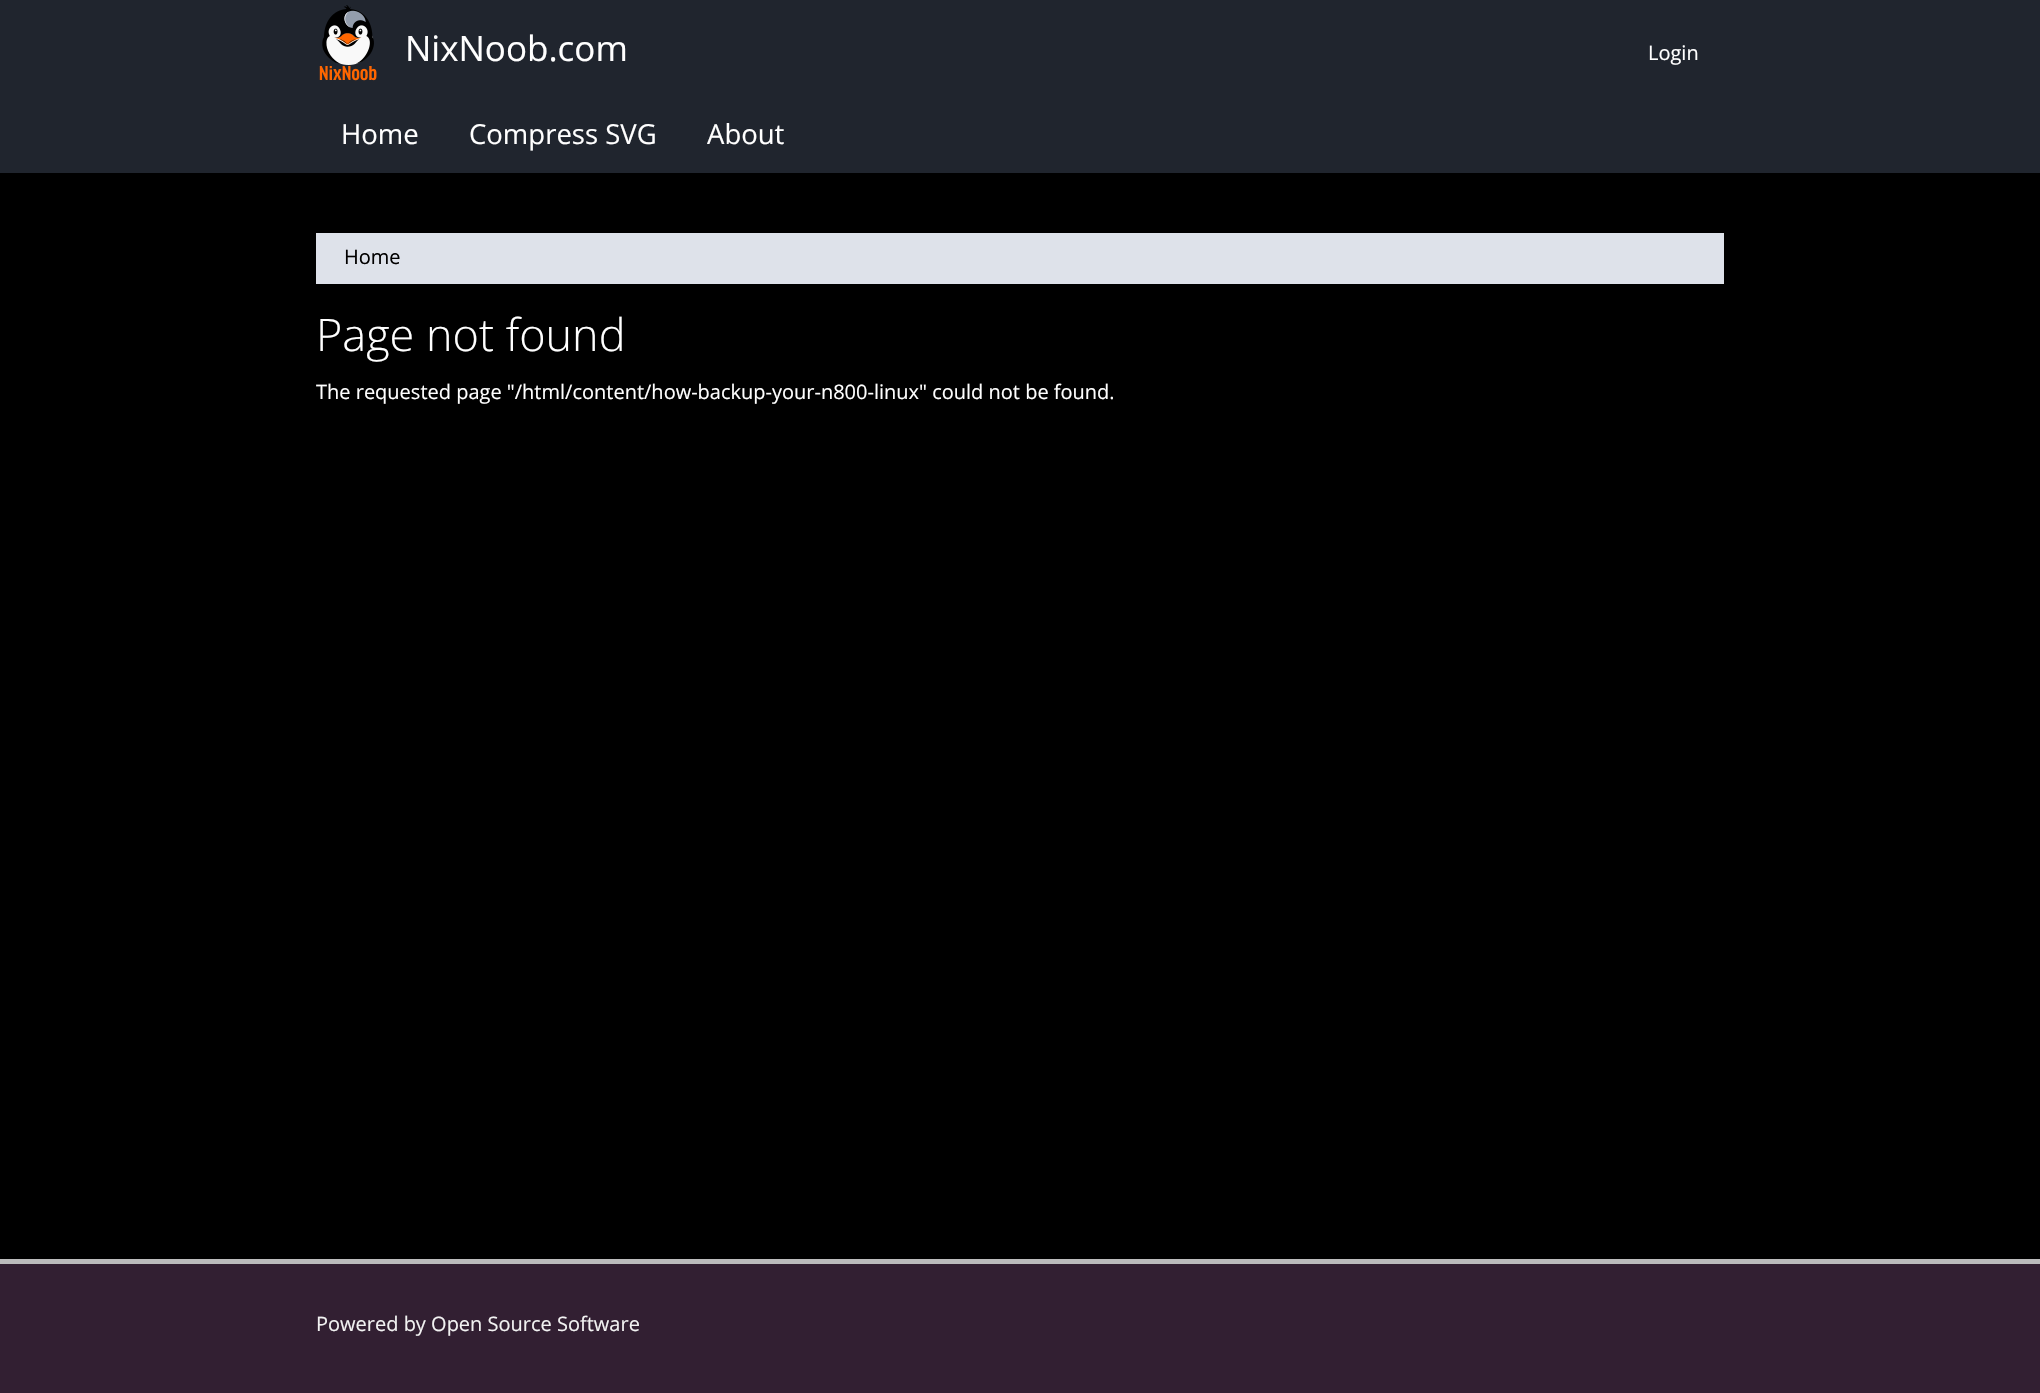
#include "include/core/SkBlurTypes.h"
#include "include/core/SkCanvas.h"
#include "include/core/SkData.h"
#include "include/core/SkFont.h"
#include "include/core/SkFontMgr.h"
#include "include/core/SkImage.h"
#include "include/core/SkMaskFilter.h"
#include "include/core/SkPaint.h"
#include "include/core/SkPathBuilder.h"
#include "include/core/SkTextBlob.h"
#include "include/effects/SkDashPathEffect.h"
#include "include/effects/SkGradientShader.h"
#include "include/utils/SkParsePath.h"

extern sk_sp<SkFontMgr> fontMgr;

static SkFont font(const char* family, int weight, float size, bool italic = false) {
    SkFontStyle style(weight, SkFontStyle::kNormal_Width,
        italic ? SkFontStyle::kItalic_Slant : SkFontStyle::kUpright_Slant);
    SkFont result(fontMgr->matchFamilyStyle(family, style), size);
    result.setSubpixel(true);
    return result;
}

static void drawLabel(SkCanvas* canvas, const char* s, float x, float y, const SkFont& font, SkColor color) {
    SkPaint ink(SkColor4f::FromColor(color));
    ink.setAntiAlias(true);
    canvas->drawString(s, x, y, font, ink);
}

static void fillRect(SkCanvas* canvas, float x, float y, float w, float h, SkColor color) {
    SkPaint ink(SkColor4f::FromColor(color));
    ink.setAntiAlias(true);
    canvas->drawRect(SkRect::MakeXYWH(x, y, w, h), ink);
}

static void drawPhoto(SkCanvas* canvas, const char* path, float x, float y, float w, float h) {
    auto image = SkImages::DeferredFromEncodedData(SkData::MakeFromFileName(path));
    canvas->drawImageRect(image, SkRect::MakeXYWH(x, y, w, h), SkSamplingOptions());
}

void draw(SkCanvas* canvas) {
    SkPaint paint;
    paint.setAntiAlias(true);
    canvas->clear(0xFF000000);
    fillRect(canvas, 0, 0, 2040, 173, 0xFF20252E);
    drawPhoto(canvas, "assets/img1.png", 319, 5, 58, 76);
    SkFont font1 = font("Open Sans", 400, 35);
    drawLabel(canvas, "NixNoob.com", 405, 61, font1, 0xFFFFFFFF);
    SkFont font2 = font("Open Sans", 400, 20);
    drawLabel(canvas, "Login", 1648, 60, font2, 0xFFFFFFFF);
    SkFont font3 = font("Open Sans", 400, 27.5f);
    drawLabel(canvas, "Home", 341, 144, font3, 0xFFFFFFFF);
    drawLabel(canvas, "Compress SVG", 469, 144, font3, 0xFFFFFFFF);
    drawLabel(canvas, "About", 707, 144, font3, 0xFFFFFFFF);
    fillRect(canvas, 316, 233, 1408, 51, 0xFFDEE2EA);
    drawLabel(canvas, "Home", 344, 264, font2, 0xFF010000);
    SkFont font4 = font("Open Sans", 300, 45);
    drawLabel(canvas, "Page not found", 316, 351, font4, 0xFFFFFFFF);
    drawLabel(canvas, "The requested page \"/html/content/how-backup-your-n800-linux\" could not be found.", 316, 399, font2, 0xFFFFFFFF);
    fillRect(canvas, 0, 1264, 2040, 129, 0xFF321F32);
    fillRect(canvas, 0, 1259, 2040, 5, 0xFFBBBBBC);
    drawLabel(canvas, "Powered by Open Source Software", 316, 1331, font2, 0xFFF2F2F2);
}
